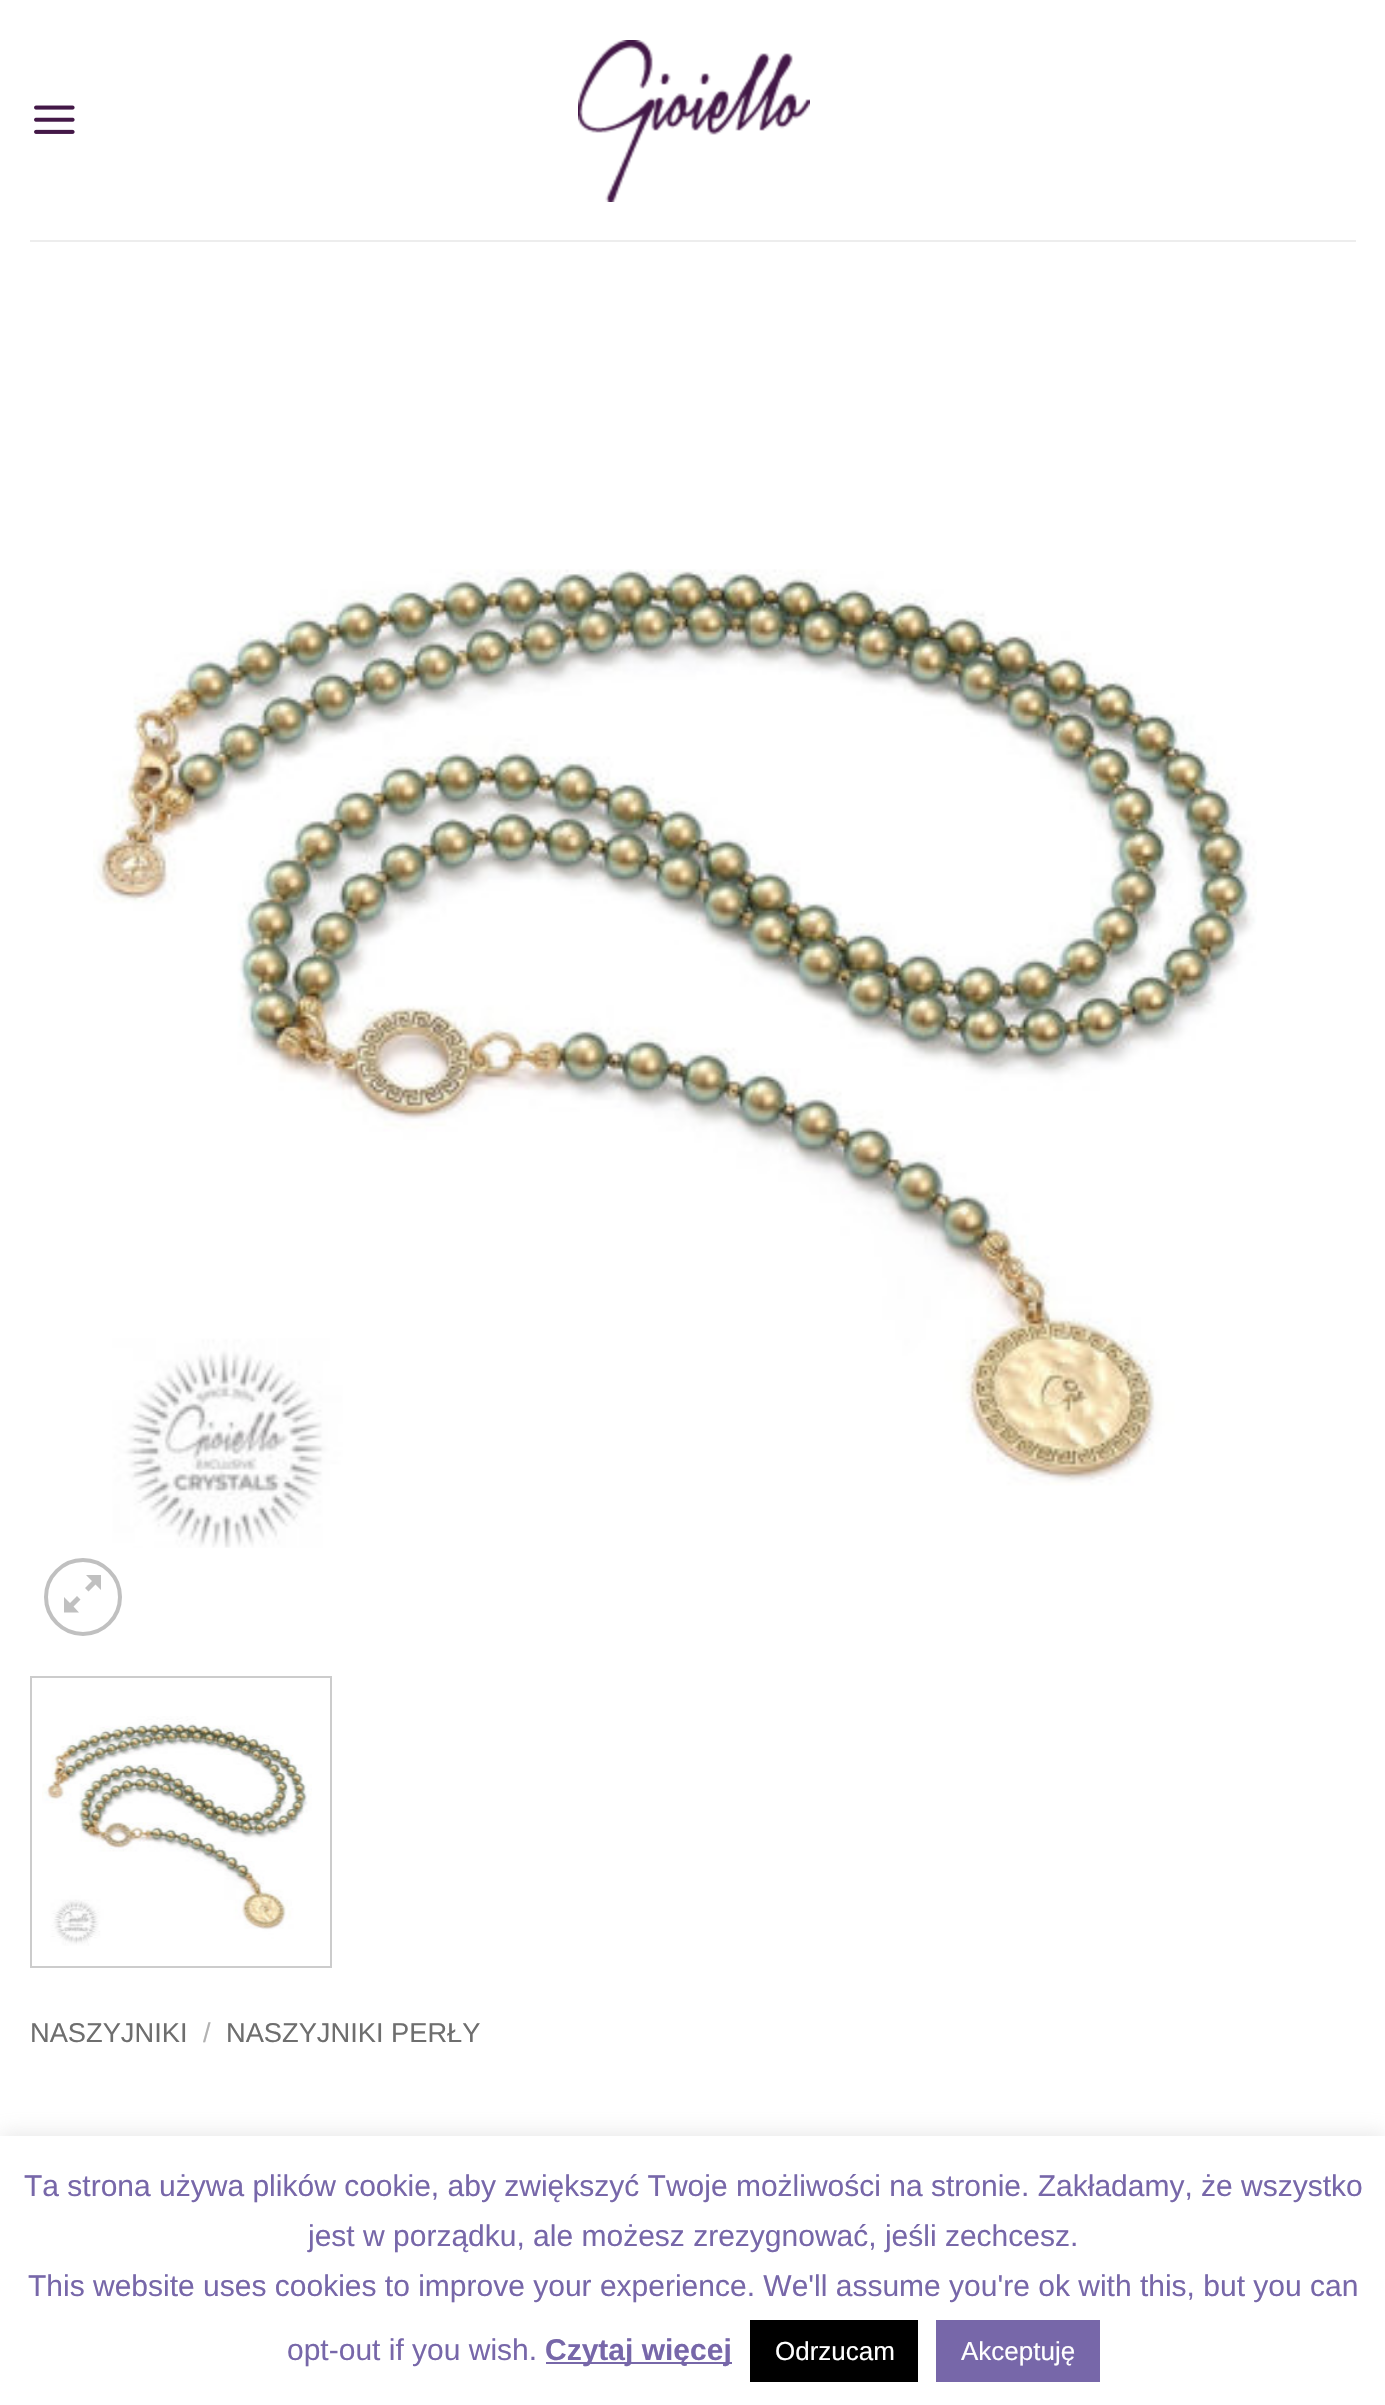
#include "include/core/SkBlurTypes.h"
#include "include/core/SkCanvas.h"
#include "include/core/SkData.h"
#include "include/core/SkFont.h"
#include "include/core/SkFontMgr.h"
#include "include/core/SkImage.h"
#include "include/core/SkMaskFilter.h"
#include "include/core/SkPaint.h"
#include "include/core/SkPathBuilder.h"
#include "include/core/SkTextBlob.h"
#include "include/effects/SkDashPathEffect.h"
#include "include/effects/SkGradientShader.h"
#include "include/utils/SkParsePath.h"

extern sk_sp<SkFontMgr> fontMgr;

static SkFont font(const char* family, int weight, float size, bool italic = false) {
    SkFontStyle style(weight, SkFontStyle::kNormal_Width,
        italic ? SkFontStyle::kItalic_Slant : SkFontStyle::kUpright_Slant);
    SkFont result(fontMgr->matchFamilyStyle(family, style), size);
    result.setSubpixel(true);
    return result;
}

static void drawLabel(SkCanvas* canvas, const char* s, float x, float y, const SkFont& font, SkColor color) {
    SkPaint ink(SkColor4f::FromColor(color));
    ink.setAntiAlias(true);
    canvas->drawString(s, x, y, font, ink);
}

static void fillRect(SkCanvas* canvas, float x, float y, float w, float h, SkColor color) {
    SkPaint ink(SkColor4f::FromColor(color));
    ink.setAntiAlias(true);
    canvas->drawRect(SkRect::MakeXYWH(x, y, w, h), ink);
}

static void drawPhoto(SkCanvas* canvas, const char* path, float x, float y, float w, float h) {
    auto image = SkImages::DeferredFromEncodedData(SkData::MakeFromFileName(path));
    canvas->drawImageRect(image, SkRect::MakeXYWH(x, y, w, h), SkSamplingOptions());
}

static SkPath parsePath(const char* data, bool evenOdd = false) {
    SkPath result = *SkParsePath::FromSVGString(data);
    if (evenOdd) result.setFillType(SkPathFillType::kEvenOdd);
    return result;
}

void draw(SkCanvas* canvas) {
    SkPaint paint;
    paint.setAntiAlias(true);
    canvas->clear(0xFFFFFFFF);
    drawPhoto(canvas, "assets/img1.png", 34, 105, 41, 29);
    drawPhoto(canvas, "assets/img2.png", 578, 40, 232, 162);
    fillRect(canvas, 30, 240, 1326, 2, 0xFFEDEDED);
    drawPhoto(canvas, "assets/img3.png", 93, 569, 1164, 979);
    paint.setStroke(true);
    paint.setStrokeWidth(4);
    paint.setColor(0xFFC0C0C0);
    canvas->drawCircle(83, 1597, 37, paint);
    paint.setStroke(false);
    canvas->drawPath(parsePath("M101 1575V1590L95.5 1584.5L88.5 1591.5L85 1588L92 1581L86 1575ZM80.5 1599.5L73.5 1606.5L79 1612.5H64V1597L70 1603L77 1596Z"), paint);
    paint.setStroke(true);
    paint.setStrokeWidth(2);
    paint.setColor(0xFFCCCCCC);
    canvas->drawRect(SkRect::MakeXYWH(31, 1677, 300, 290), paint);
    drawPhoto(canvas, "assets/img4.png", 42, 1716, 270, 230);
    SkFont font1 = font("Liberation Sans", 400, 27.25f);
    drawLabel(canvas, "NASZYJNIKI", 30, 2042, font1, 0xFF6E6E6E);
    drawLabel(canvas, "/", 203, 2042, font1, 0xFFB2B2B2);
    drawLabel(canvas, "NASZYJNIKI PERŁY", 226, 2042, font1, 0xFF6E6E6E);
    paint.setStroke(false);
    paint.setColor(0x4DACABAB);
    paint.setMaskFilter(SkMaskFilter::MakeBlur(kNormal_SkBlurStyle, 10));
    canvas->drawRect(SkRect::MakeXYWH(0, 2134, 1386, 270), paint);
    paint.setMaskFilter(nullptr);
    fillRect(canvas, 0, 2136, 1385, 269, 0xFFFFFFFF);
    SkFont font2 = font("Liberation Sans", 400, 30);
    drawLabel(canvas, "Ta strona używa plików cookie, aby zwiększyć Twoje możliwości na stronie. Zakładamy, że wszystko", 24, 2196, font2, 0xFF7767A9);
    drawLabel(canvas, "jest w porządku, ale możesz zrezygnować, jeśli zechcesz.", 308, 2246, font2, 0xFF7767A9);
    drawLabel(canvas, "This website uses cookies to improve your experience. We'll assume you're ok with this, but you can", 28, 2296, font2, 0xFF7767A9);
    drawLabel(canvas, "opt-out if you wish.", 287, 2360, font2, 0xFF7767A9);
    fillRect(canvas, 546, 2362, 186, 2, 0xFF7767A9);
    SkFont font3 = font("Liberation Sans", 700, 30);
    drawLabel(canvas, "Czytaj więcej", 545, 2360, font3, 0xFF7767A9);
    fillRect(canvas, 750, 2320, 168, 62, 0xFF000000);
    SkFont font4 = font("Liberation Sans", 400, 26);
    drawLabel(canvas, "Odrzucam", 775, 2360, font4, 0xFFFFFFFF);
    fillRect(canvas, 936, 2320, 164, 62, 0xFF7767A9);
    drawLabel(canvas, "Akceptuję", 961, 2360, font4, 0xFFFFFFFF);
}
